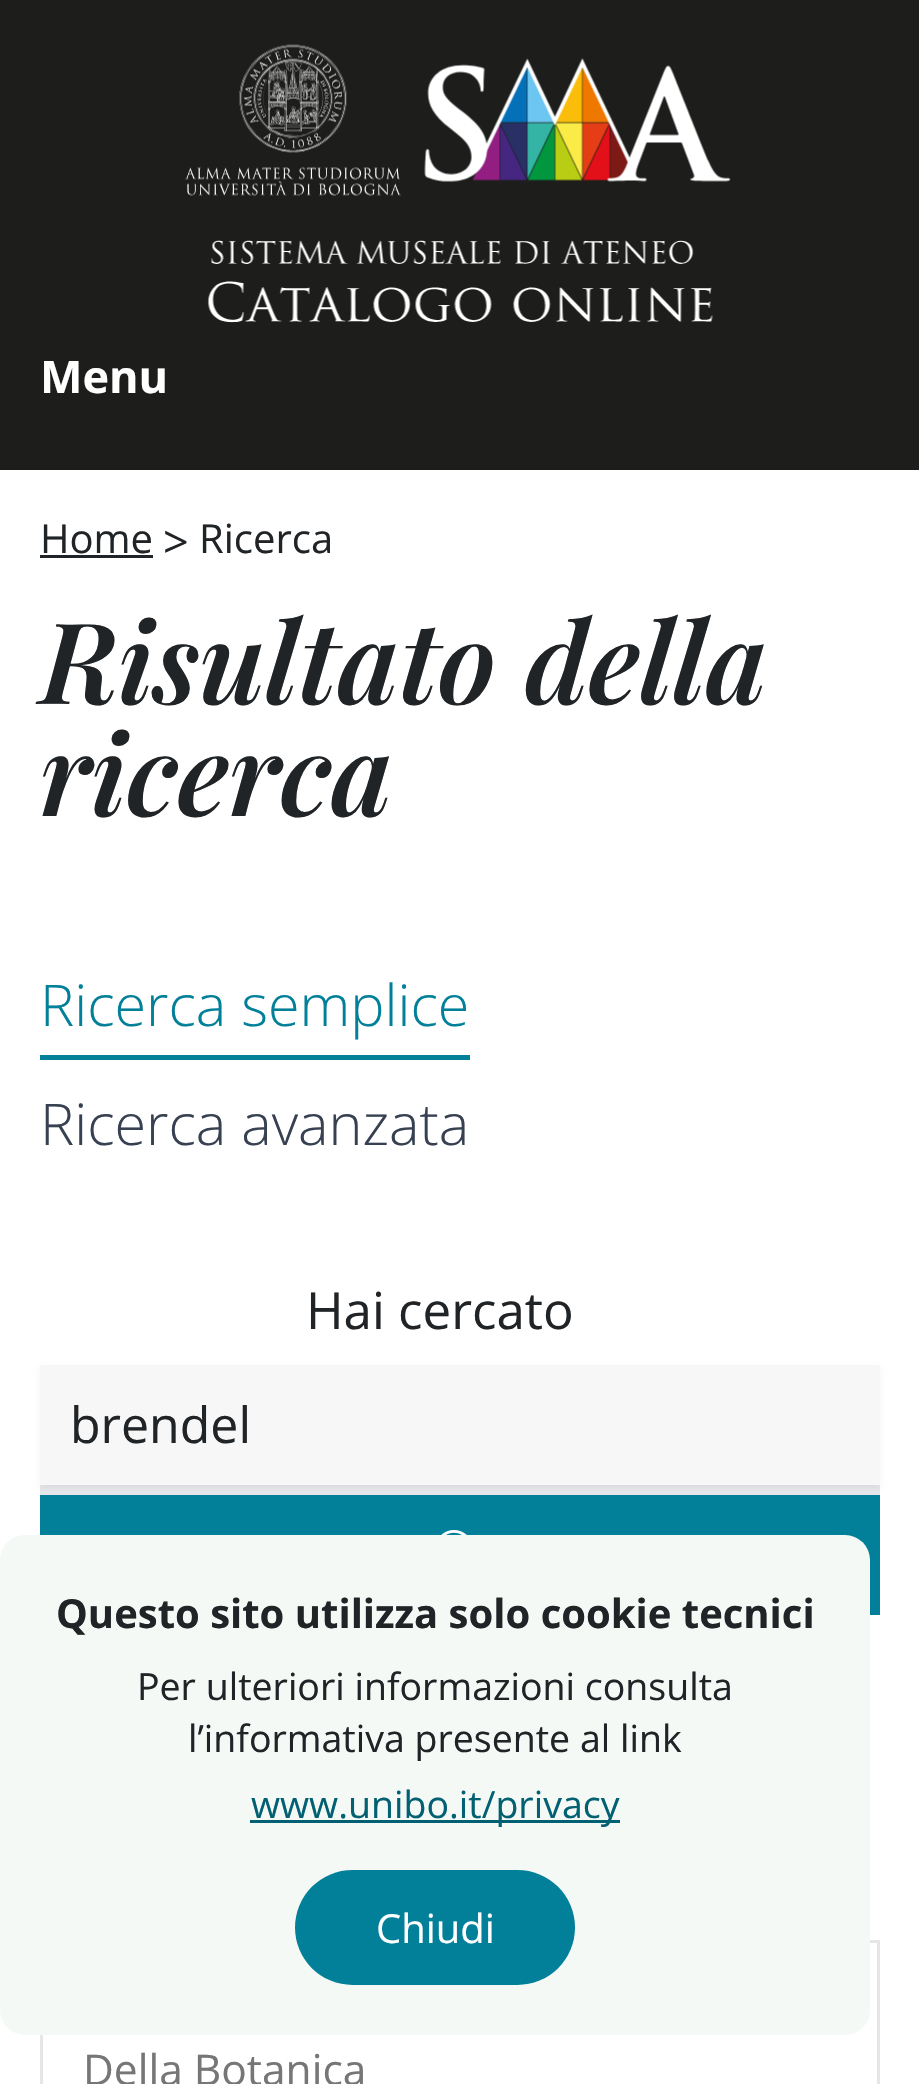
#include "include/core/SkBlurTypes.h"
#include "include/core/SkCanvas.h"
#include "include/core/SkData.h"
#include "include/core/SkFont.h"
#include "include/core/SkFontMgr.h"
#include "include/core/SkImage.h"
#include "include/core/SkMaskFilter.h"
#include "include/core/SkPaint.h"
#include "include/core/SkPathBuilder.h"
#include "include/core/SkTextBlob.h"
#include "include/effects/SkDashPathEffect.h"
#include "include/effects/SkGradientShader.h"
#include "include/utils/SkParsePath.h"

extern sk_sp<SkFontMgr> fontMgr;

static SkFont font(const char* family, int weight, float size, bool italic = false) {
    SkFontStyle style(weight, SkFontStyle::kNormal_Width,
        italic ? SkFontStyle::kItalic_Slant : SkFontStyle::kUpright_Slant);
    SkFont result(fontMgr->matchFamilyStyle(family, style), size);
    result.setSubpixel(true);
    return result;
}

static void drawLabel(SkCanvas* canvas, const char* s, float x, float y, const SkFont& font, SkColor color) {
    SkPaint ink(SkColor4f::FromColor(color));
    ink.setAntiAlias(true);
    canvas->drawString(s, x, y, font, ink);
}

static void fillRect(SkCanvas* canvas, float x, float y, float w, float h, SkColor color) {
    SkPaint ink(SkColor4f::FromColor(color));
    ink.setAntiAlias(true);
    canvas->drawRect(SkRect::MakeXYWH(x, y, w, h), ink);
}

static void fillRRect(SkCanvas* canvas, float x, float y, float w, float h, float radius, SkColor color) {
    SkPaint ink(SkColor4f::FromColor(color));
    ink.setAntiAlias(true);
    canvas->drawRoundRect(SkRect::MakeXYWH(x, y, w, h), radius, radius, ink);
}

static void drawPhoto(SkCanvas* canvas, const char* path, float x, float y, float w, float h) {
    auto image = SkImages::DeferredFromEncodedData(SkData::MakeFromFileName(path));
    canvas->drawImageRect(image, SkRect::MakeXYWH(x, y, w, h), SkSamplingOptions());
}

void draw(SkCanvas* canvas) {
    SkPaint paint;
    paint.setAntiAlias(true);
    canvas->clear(0xFFFFFFFF);
    fillRect(canvas, 0, 0, 919, 470, 0xFF1D1D1B);
    drawPhoto(canvas, "assets/img1.png", 185, 44, 216, 152);
    drawPhoto(canvas, "assets/img2.png", 424, 58, 307, 124);
    drawPhoto(canvas, "assets/img3.png", 207, 240, 506, 83);
    SkFont font1 = font("Open Sans", 700, 45);
    drawLabel(canvas, "Menu", 40, 393, font1, 0xFFFFFFFF);
    SkFont font2 = font("Open Sans", 400, 40);
    drawLabel(canvas, "Home", 40, 553, font2, 0xFF212427);
    fillRect(canvas, 40, 555, 113, 3, 0xFF212427);
    SkFont font3 = font("Open Sans", 400, 45);
    drawLabel(canvas, ">", 163, 558, font3, 0xFF212427);
    drawLabel(canvas, "Ricerca", 199, 553, font2, 0xFF212427);
    SkFont font4 = font("Playfair Display", 600, 112.5f, true);
    drawLabel(canvas, "Risultato della", 40, 704, font4, 0xFF212427);
    drawLabel(canvas, "ricerca", 40, 816, font4, 0xFF212427);
    SkFont font5 = font("Open Sans", 300, 57.5f);
    drawLabel(canvas, "Ricerca semplice", 40, 1026, font5, 0xFF028099);
    fillRect(canvas, 40, 1055, 430, 5, 0xFF028099);
    drawLabel(canvas, "Ricerca avanzata", 40, 1145, font5, 0xFF374151);
    SkFont font6 = font("Open Sans", 400, 51);
    drawLabel(canvas, "Hai cercato", 306, 1329, font6, 0xFF212427);
    fillRect(canvas, 40, 1485, 840, 10, 0xFFE5E7EB);
    paint.setColor(0x0D000000);
    paint.setMaskFilter(SkMaskFilter::MakeBlur(kNormal_SkBlurStyle, 2.5f));
    canvas->drawRect(SkRect::MakeXYWH(40, 1368, 840, 120), paint);
    paint.setMaskFilter(nullptr);
    fillRect(canvas, 40, 1365, 840, 120, 0xFFF8F7F7);
    SkFont font7 = font("Open Sans", 400, 50);
    drawLabel(canvas, "brendel", 70, 1443, font7, 0xFF212427);
    fillRect(canvas, 40, 1495, 840, 120, 0xFF028099);
    drawPhoto(canvas, "assets/img4.png", 441, 1530, 26, 5);
    paint.setStroke(true);
    paint.setStrokeWidth(3);
    paint.setColor(0xFFE6E6E6);
    canvas->drawRect(SkRect::MakeXYWH(41.5f, 1941.5f, 837, 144), paint);
    SkFont font8 = font("Open Sans", 400, 42.5f);
    drawLabel(canvas, "Della Botanica", 83, 2085, font8, 0xFF767676);
    fillRRect(canvas, 0, 1535, 870, 500, 25, 0xFFF5F9F6);
    SkFont font9 = font("Open Sans", 700, 40);
    drawLabel(canvas, "Questo sito utilizza solo cookie tecnici", 56, 1628, font9, 0xFF212427);
    SkFont font10 = font("Open Sans", 400, 37.5f);
    drawLabel(canvas, "Per ulteriori informazioni consulta", 137, 1700, font10, 0xFF212427);
    drawLabel(canvas, "l’informativa presente al link", 188, 1752, font10, 0xFF212427);
    fillRect(canvas, 250, 1820, 370, 3, 0xFF016072);
    drawLabel(canvas, "www.unibo.it/privacy", 251, 1818, font10, 0xFF016072);
    fillRRect(canvas, 295, 1870, 280, 115, 57.5f, 0xFF028099);
    drawLabel(canvas, "Chiudi", 376, 1943, font2, 0xFFFFFFFF);
}
